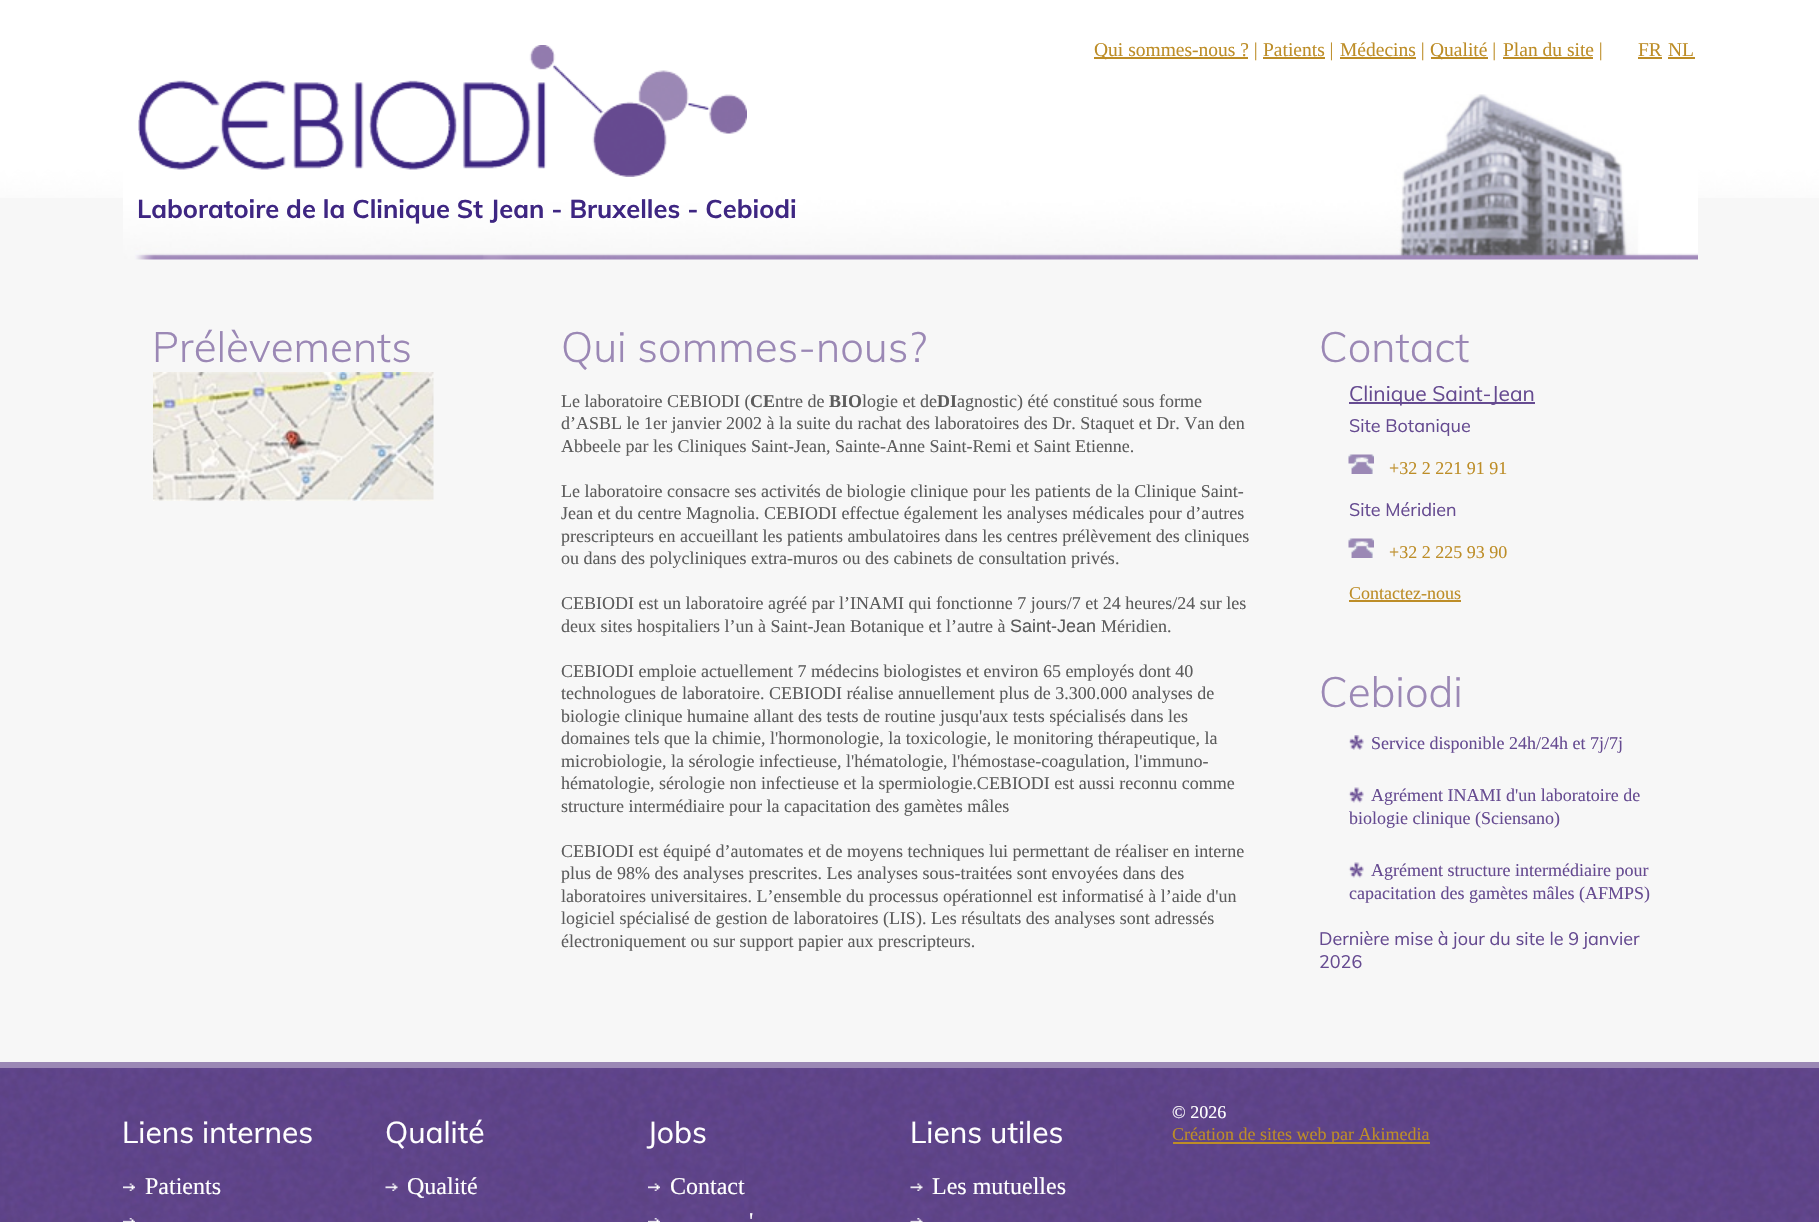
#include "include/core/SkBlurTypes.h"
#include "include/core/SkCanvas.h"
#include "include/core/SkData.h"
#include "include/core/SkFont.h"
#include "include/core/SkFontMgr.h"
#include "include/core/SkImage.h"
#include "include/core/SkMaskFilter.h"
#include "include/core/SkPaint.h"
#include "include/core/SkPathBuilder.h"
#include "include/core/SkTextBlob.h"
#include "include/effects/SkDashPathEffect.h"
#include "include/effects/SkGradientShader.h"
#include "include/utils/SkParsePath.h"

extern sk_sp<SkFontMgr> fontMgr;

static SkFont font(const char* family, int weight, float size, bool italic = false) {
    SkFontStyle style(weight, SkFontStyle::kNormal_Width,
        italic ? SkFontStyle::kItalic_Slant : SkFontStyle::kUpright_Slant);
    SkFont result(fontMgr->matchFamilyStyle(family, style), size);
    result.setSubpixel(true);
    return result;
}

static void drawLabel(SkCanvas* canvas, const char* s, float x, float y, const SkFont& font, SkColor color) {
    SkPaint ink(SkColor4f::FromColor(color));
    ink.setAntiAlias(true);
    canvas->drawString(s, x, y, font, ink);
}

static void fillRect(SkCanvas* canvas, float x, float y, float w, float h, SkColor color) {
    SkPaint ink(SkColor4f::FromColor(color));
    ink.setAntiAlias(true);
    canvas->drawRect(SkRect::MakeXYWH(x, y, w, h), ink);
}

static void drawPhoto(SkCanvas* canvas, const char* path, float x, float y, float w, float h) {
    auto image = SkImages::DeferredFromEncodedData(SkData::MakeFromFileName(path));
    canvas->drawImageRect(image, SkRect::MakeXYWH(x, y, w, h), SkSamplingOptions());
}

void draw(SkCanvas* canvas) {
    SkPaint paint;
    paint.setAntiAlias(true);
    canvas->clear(0xFFF7F7F7);
    drawPhoto(canvas, "assets/img1.png", 0, 0, 1819, 198);
    drawPhoto(canvas, "assets/img2.png", 123, 94, 1575, 166);
    fillRect(canvas, 1094, 57, 154, 2, 0xFFBD8D27);
    SkFont font1 = font("Liberation Serif", 400, 19.5f);
    drawLabel(canvas, "Qui sommes-nous ? |", 1094, 56, font1, 0xFFBD8D27);
    fillRect(canvas, 1263, 57, 62, 2, 0xFFBD8D27);
    drawLabel(canvas, "Patients |", 1263, 56, font1, 0xFFBD8D27);
    fillRect(canvas, 1340, 57, 76, 2, 0xFFBD8D27);
    drawLabel(canvas, "Médecins |", 1340, 56, font1, 0xFFBD8D27);
    fillRect(canvas, 1431, 57, 57, 2, 0xFFBD8D27);
    drawLabel(canvas, "Qualité |", 1430, 56, font1, 0xFFBD8D27);
    fillRect(canvas, 1503, 57, 90, 2, 0xFFBD8D27);
    drawLabel(canvas, "Plan du site |", 1503, 56, font1, 0xFFBD8D27);
    drawLabel(canvas, "FR", 1638, 56, font1, 0xFFBD8D27);
    fillRect(canvas, 1638, 57, 24, 2, 0xFFBD8D27);
    drawLabel(canvas, "NL", 1668, 56, font1, 0xFFBD8D27);
    fillRect(canvas, 1668, 57, 27, 2, 0xFFBD8D27);
    drawPhoto(canvas, "assets/img3.png", 138, 45, 609, 132);
    SkFont font2 = font("Muli", 700, 25.5f);
    drawLabel(canvas, "Laboratoire de la Clinique St Jean - Bruxelles - Cebiodi", 137, 218, font2, 0xFF3E2682);
    SkFont font3 = font("Muli", 300, 42);
    drawLabel(canvas, "Prélèvements", 152, 362, font3, 0xFF9B88B5);
    drawPhoto(canvas, "assets/img4.png", 153, 372, 281, 129);
    drawLabel(canvas, "Qui sommes-nous?", 561, 362, font3, 0xFF9B88B5);
    SkFont font4 = font("Liberation Serif", 400, 18);
    drawLabel(canvas, "Le laboratoire CEBIODI (", 561, 407, font4, 0xFF5C5C5C);
    SkFont font5 = font("Liberation Serif", 700, 18);
    drawLabel(canvas, "CE", 750, 407, font5, 0xFF5C5C5C);
    drawLabel(canvas, "ntre de", 775, 407, font4, 0xFF5C5C5C);
    drawLabel(canvas, "BIO", 829, 407, font5, 0xFF5C5C5C);
    drawLabel(canvas, "logie et de", 862, 407, font4, 0xFF5C5C5C);
    drawLabel(canvas, "DI", 937, 407, font5, 0xFF5C5C5C);
    drawLabel(canvas, "agnostic) été constitué sous forme", 957, 407, font4, 0xFF5C5C5C);
    drawLabel(canvas, "d’ASBL le 1er janvier 2002 à la suite du rachat des laboratoires des Dr. Staquet et Dr. Van den", 561, 429, font4, 0xFF5C5C5C);
    drawLabel(canvas, "Abbeele par les Cliniques Saint-Jean, Sainte-Anne Saint-Remi et Saint Etienne.", 561, 452, font4, 0xFF5C5C5C);
    drawLabel(canvas, "Le laboratoire consacre ses activités de biologie clinique pour les patients de la Clinique Saint-", 561, 497, font4, 0xFF5C5C5C);
    drawLabel(canvas, "Jean et du centre Magnolia. CEBIODI effectue également les analyses médicales pour d’autres", 561, 519, font4, 0xFF5C5C5C);
    drawLabel(canvas, "prescripteurs en accueillant les patients ambulatoires dans les centres prélèvement des cliniques", 561, 542, font4, 0xFF5C5C5C);
    drawLabel(canvas, "ou dans des polycliniques extra-muros ou des cabinets de consultation privés.", 561, 564, font4, 0xFF5C5C5C);
    drawLabel(canvas, "CEBIODI est un laboratoire agréé par l’INAMI qui fonctionne 7 jours/7 et 24 heures/24 sur les", 561, 609, font4, 0xFF5C5C5C);
    drawLabel(canvas, "deux sites hospitaliers l’un à Saint-Jean Botanique et l’autre à", 561, 632, font4, 0xFF5C5C5C);
    SkFont font6 = font("Liberation Sans", 400, 18);
    drawLabel(canvas, "Saint-Jean", 1010, 632, font6, 0xFF5C5C5C);
    drawLabel(canvas, "Méridien.", 1101, 632, font4, 0xFF5C5C5C);
    drawLabel(canvas, "CEBIODI emploie actuellement 7 médecins biologistes et environ 65 employés dont 40", 561, 677, font4, 0xFF5C5C5C);
    drawLabel(canvas, "technologues de laboratoire. CEBIODI réalise annuellement plus de 3.300.000 analyses de", 561, 699, font4, 0xFF5C5C5C);
    drawLabel(canvas, "biologie clinique humaine allant des tests de routine jusqu'aux tests spécialisés dans les", 561, 722, font4, 0xFF5C5C5C);
    drawLabel(canvas, "domaines tels que la chimie, l'hormonologie, la toxicologie, le monitoring thérapeutique, la", 561, 744, font4, 0xFF5C5C5C);
    drawLabel(canvas, "microbiologie, la sérologie infectieuse, l'hématologie, l'hémostase-coagulation, l'immuno-", 561, 767, font4, 0xFF5C5C5C);
    drawLabel(canvas, "hématologie, sérologie non infectieuse et la spermiologie.CEBIODI est aussi reconnu comme", 561, 789, font4, 0xFF5C5C5C);
    drawLabel(canvas, "structure intermédiaire pour la capacitation des gamètes mâles", 561, 812, font4, 0xFF5C5C5C);
    drawLabel(canvas, "CEBIODI est équipé d’automates et de moyens techniques lui permettant de réaliser en interne", 561, 857, font4, 0xFF5C5C5C);
    drawLabel(canvas, "plus de 98% des analyses prescrites. Les analyses sous-traitées sont envoyées dans des", 561, 879, font4, 0xFF5C5C5C);
    drawLabel(canvas, "laboratoires universitaires. L’ensemble du processus opérationnel est informatisé à l’aide d'un", 561, 902, font4, 0xFF5C5C5C);
    drawLabel(canvas, "logiciel spécialisé de gestion de laboratoires (LIS). Les résultats des analyses sont adressés", 561, 924, font4, 0xFF5C5C5C);
    drawLabel(canvas, "électroniquement ou sur support papier aux prescripteurs.", 561, 947, font4, 0xFF5C5C5C);
    drawLabel(canvas, "Contact", 1319, 362, font3, 0xFF9B88B5);
    fillRect(canvas, 1349, 402, 186, 2, 0xFF664B91);
    SkFont font7 = font("Muli", 400, 21);
    drawLabel(canvas, "Clinique Saint-Jean", 1349, 401, font7, 0xFF664B91);
    SkFont font8 = font("Muli", 400, 18);
    drawLabel(canvas, "Site Botanique", 1349, 432, font8, 0xFF664B91);
    drawPhoto(canvas, "assets/img5.png", 1348, 454, 26, 20);
    drawLabel(canvas, "+32 2 221 91 91", 1389, 474, font4, 0xFFBD8D27);
    drawLabel(canvas, "Site Méridien", 1349, 516, font8, 0xFF664B91);
    drawPhoto(canvas, "assets/img5.png", 1348, 538, 26, 20);
    drawLabel(canvas, "+32 2 225 93 90", 1389, 558, font4, 0xFFBD8D27);
    drawLabel(canvas, "Contactez-nous", 1349, 599, font4, 0xFFBD8D27);
    fillRect(canvas, 1349, 600, 112, 2, 0xFFBD8D27);
    drawLabel(canvas, "Cebiodi", 1319, 707, font3, 0xFF9B88B5);
    drawPhoto(canvas, "assets/img6.png", 1349, 735, 15, 15);
    drawLabel(canvas, "Service disponible 24h/24h et 7j/7j", 1371, 749, font4, 0xFF664B91);
    drawPhoto(canvas, "assets/img7.png", 1348, 787, 16, 16);
    drawLabel(canvas, "Agrément INAMI d'un laboratoire de", 1371, 801, font4, 0xFF664B91);
    drawLabel(canvas, "biologie clinique (Sciensano)", 1349, 824, font4, 0xFF664B91);
    drawPhoto(canvas, "assets/img7.png", 1348, 862, 16, 16);
    drawLabel(canvas, "Agrément structure intermédiaire pour", 1371, 876, font4, 0xFF664B91);
    drawLabel(canvas, "capacitation des gamètes mâles (AFMPS)", 1349, 899, font4, 0xFF664B91);
    drawLabel(canvas, "Dernière mise à jour du site le 9 janvier", 1319, 945, font8, 0xFF664B91);
    drawLabel(canvas, "2026", 1319, 968, font8, 0xFF664B91);
    drawPhoto(canvas, "assets/img8.png", 0, 1068, 1819, 154);
    fillRect(canvas, 0, 1062, 1819, 6, 0xFF9B88B5);
    SkFont font9 = font("Muli", 400, 30);
    drawLabel(canvas, "Liens internes", 122, 1143, font9, 0xFFFFFFFF);
    drawPhoto(canvas, "assets/img9.png", 123, 1183, 12, 8);
    SkFont font10 = font("Liberation Serif", 400, 24);
    drawLabel(canvas, "Patients", 145, 1194, font10, 0xFFFFFFFF);
    drawPhoto(canvas, "assets/img10.png", 123, 1218, 12, 4);
    drawLabel(canvas, "Qualité", 385, 1143, font9, 0xFFFFFFFF);
    drawPhoto(canvas, "assets/img11.png", 385, 1183, 13, 8);
    drawLabel(canvas, "Qualité", 407, 1194, font10, 0xFFFFFFFF);
    drawLabel(canvas, "Jobs", 647, 1143, font9, 0xFFFFFFFF);
    drawPhoto(canvas, "assets/img12.png", 648, 1183, 12, 8);
    drawLabel(canvas, "Contact", 670, 1194, font10, 0xFFFFFFFF);
    drawPhoto(canvas, "assets/img13.png", 648, 1218, 12, 4);
    drawLabel(canvas, "'", 749, 1229, font10, 0xFFFFFFFF);
    drawLabel(canvas, "Liens utiles", 910, 1143, font9, 0xFFFFFFFF);
    drawPhoto(canvas, "assets/img14.png", 910, 1183, 13, 8);
    drawLabel(canvas, "Les mutuelles", 932, 1194, font10, 0xFFFFFFFF);
    drawPhoto(canvas, "assets/img15.png", 910, 1218, 13, 4);
    drawLabel(canvas, "© 2026", 1172, 1118, font4, 0xFFFFFFFF);
    fillRect(canvas, 1173, 1142, 257, 2, 0xFFBD8D27);
    drawLabel(canvas, "Création de sites web par Akimedia", 1172, 1140, font4, 0xFFBD8D27);
}
